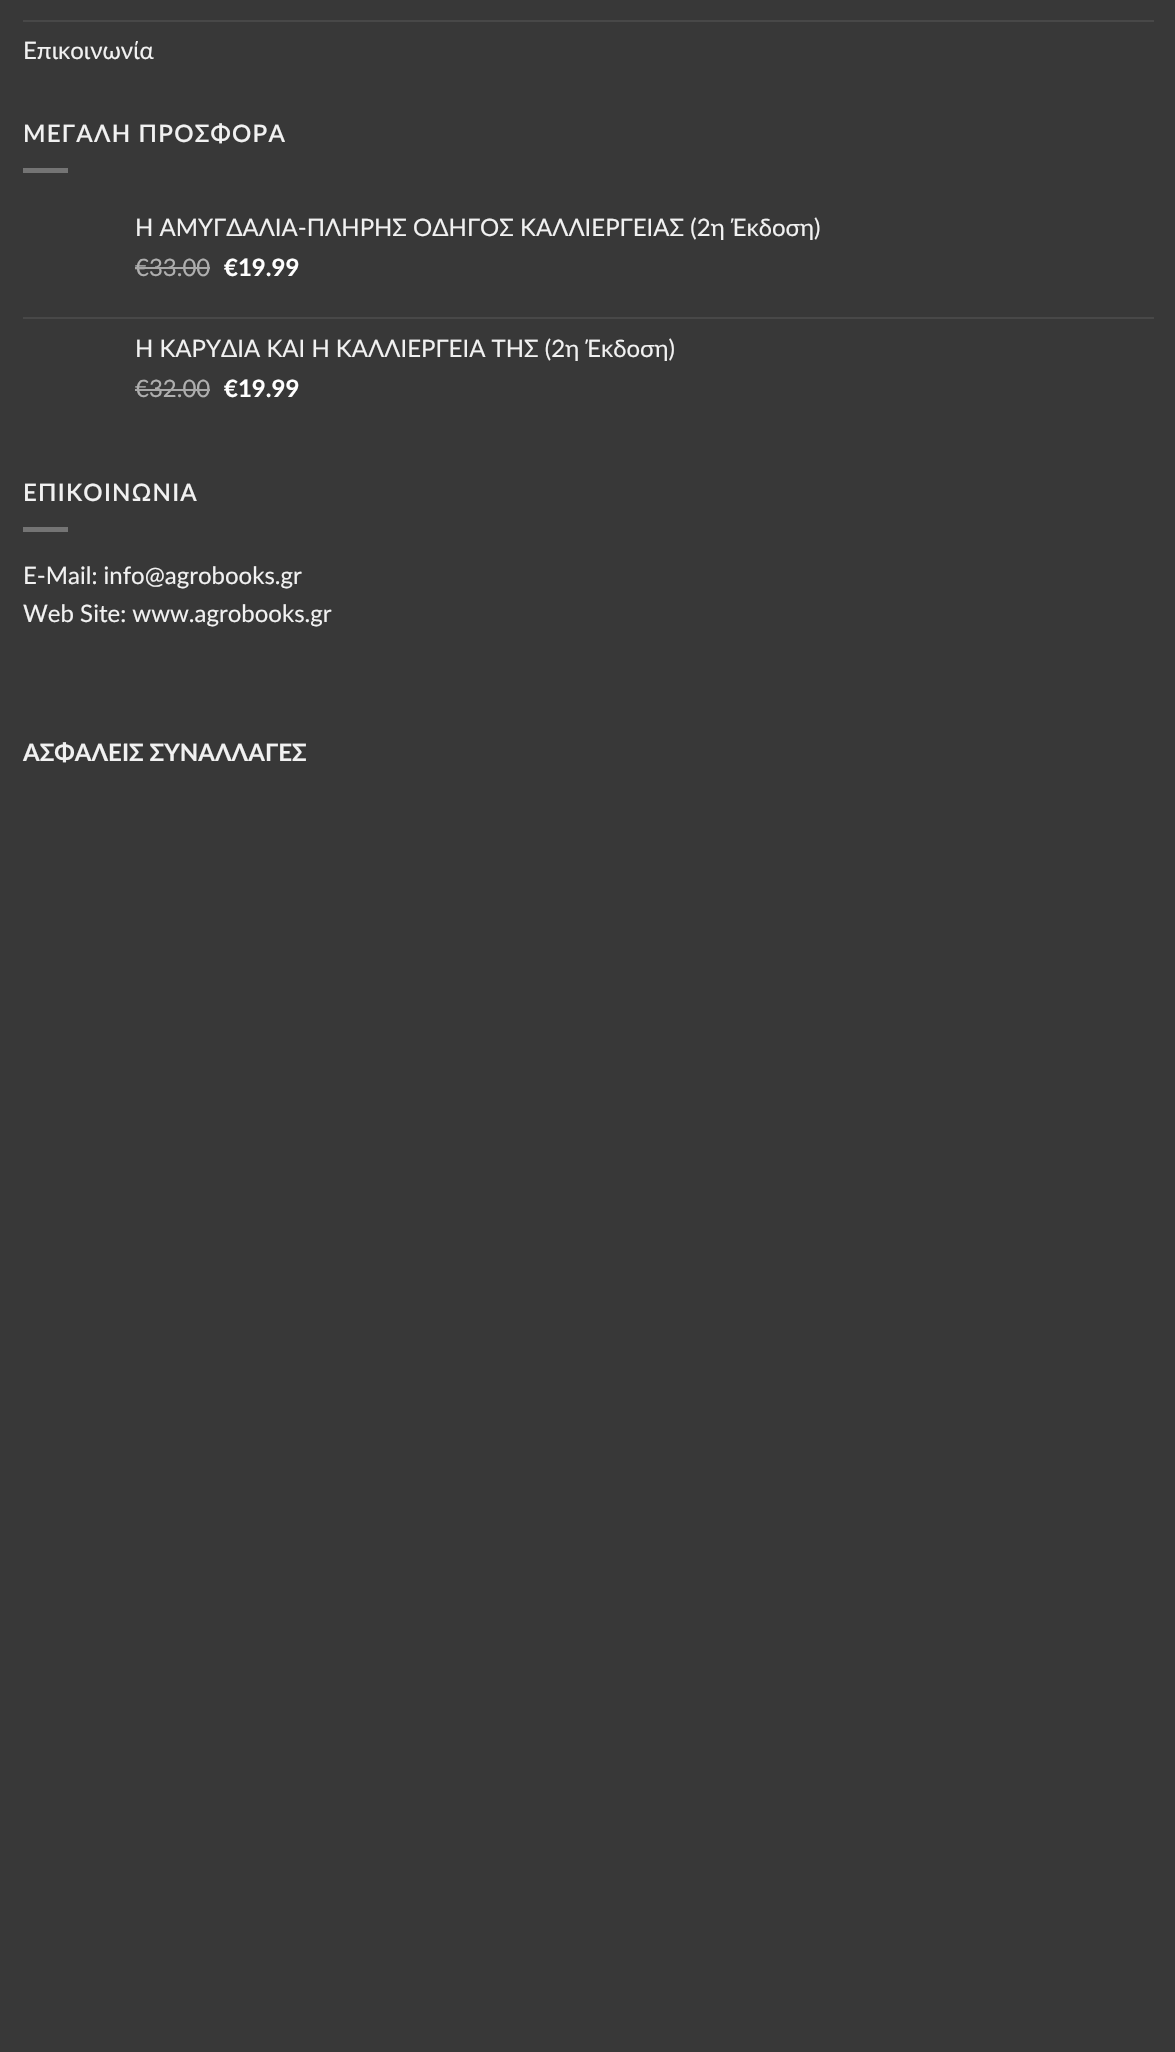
#include "include/core/SkBlurTypes.h"
#include "include/core/SkCanvas.h"
#include "include/core/SkData.h"
#include "include/core/SkFont.h"
#include "include/core/SkFontMgr.h"
#include "include/core/SkImage.h"
#include "include/core/SkMaskFilter.h"
#include "include/core/SkPaint.h"
#include "include/core/SkPathBuilder.h"
#include "include/core/SkTextBlob.h"
#include "include/effects/SkDashPathEffect.h"
#include "include/effects/SkGradientShader.h"
#include "include/utils/SkParsePath.h"

extern sk_sp<SkFontMgr> fontMgr;

static SkFont font(const char* family, int weight, float size, bool italic = false) {
    SkFontStyle style(weight, SkFontStyle::kNormal_Width,
        italic ? SkFontStyle::kItalic_Slant : SkFontStyle::kUpright_Slant);
    SkFont result(fontMgr->matchFamilyStyle(family, style), size);
    result.setSubpixel(true);
    return result;
}

static void drawLabel(SkCanvas* canvas, const char* s, float x, float y, const SkFont& font, SkColor color) {
    SkPaint ink(SkColor4f::FromColor(color));
    ink.setAntiAlias(true);
    canvas->drawString(s, x, y, font, ink);
}

static void drawTracked(SkCanvas* canvas, const char* s, float x, float y, const SkFont& font, const SkPaint& ink, float letter, float word) {
    std::vector<SkGlyphID> glyphs(font.countText(s, strlen(s), SkTextEncoding::kUTF8));
    std::vector<float> xs(glyphs.size());
    font.textToGlyphs(s, strlen(s), SkTextEncoding::kUTF8, glyphs);
    font.getXPos(glyphs, xs, x);
    float extra = 0;
    for (size_t i = 0; i < glyphs.size(); i++) {
        xs[i] += extra;
        extra += letter + word * (glyphs[i] == font.unicharToGlyph(' '));
    }
    canvas->drawTextBlob(SkTextBlob::MakeFromPosHGlyphs(glyphs, xs, y, font), 0, 0, ink);
}

static void fillRect(SkCanvas* canvas, float x, float y, float w, float h, SkColor color) {
    SkPaint ink(SkColor4f::FromColor(color));
    ink.setAntiAlias(true);
    canvas->drawRect(SkRect::MakeXYWH(x, y, w, h), ink);
}

void draw(SkCanvas* canvas) {
    SkPaint paint;
    paint.setAntiAlias(true);
    canvas->clear(0xFF383838);
    fillRect(canvas, 23, 20, 1131, 2, 0xFF484848);
    SkFont font1 = font("Lato", 400, 24);
    drawLabel(canvas, "Επικοινωνία", 23, 59, font1, 0xFFF1F1F1);
    SkFont font2 = font("Lato", 600, 24);
    paint.setColor(0xFFF1F1F1);
    drawTracked(canvas, "ΜΕΓΑΛΗ ΠΡΟΣΦΟΡΑ", 23, 142, font2, paint, 1.25f, 0);
    fillRect(canvas, 23, 168, 45, 5, 0xFF747474);
    drawLabel(canvas, "Η ΑΜΥΓΔΑΛΙΑ-ΠΛΗΡΗΣ ΟΔΗΓΟΣ ΚΑΛΛΙΕΡΓΕΙΑΣ (2η Έκδοση)", 135, 236, font1, 0xFFF1F1F1);
    drawLabel(canvas, "€33.00", 135, 276, font1, 0xFFAFAFAF);
    fillRect(canvas, 135, 267, 75, 2, 0xFFA7A7A7);
    SkFont font3 = font("Lato", 700, 24);
    drawLabel(canvas, "€19.99", 224, 276, font3, 0xFFFFFFFF);
    fillRect(canvas, 23, 317, 1131, 2, 0xFF484848);
    drawLabel(canvas, "Η ΚΑΡΥΔΙΑ ΚΑΙ Η ΚΑΛΛΙΕΡΓΕΙΑ ΤΗΣ (2η Έκδοση)", 135, 357, font1, 0xFFF1F1F1);
    drawLabel(canvas, "€32.00", 135, 397, font1, 0xFFAFAFAF);
    fillRect(canvas, 135, 389, 75, 2, 0xFFA7A7A7);
    drawLabel(canvas, "€19.99", 224, 397, font3, 0xFFFFFFFF);
    drawTracked(canvas, "ΕΠΙΚΟΙΝΩΝΙΑ", 23, 501, font2, paint, 1.25f, 0);
    fillRect(canvas, 23, 527, 45, 5, 0xFF747474);
    drawLabel(canvas, "E-Mail: info@agrobooks.gr", 23, 584, font1, 0xFFF1F1F1);
    drawLabel(canvas, "Web Site: www.agrobooks.gr", 23, 622, font1, 0xFFF1F1F1);
    drawLabel(canvas, "ΑΣΦΑΛΕΙΣ ΣΥΝΑΛΛΑΓΕΣ", 23, 761, font3, 0xFFF1F1F1);
}
